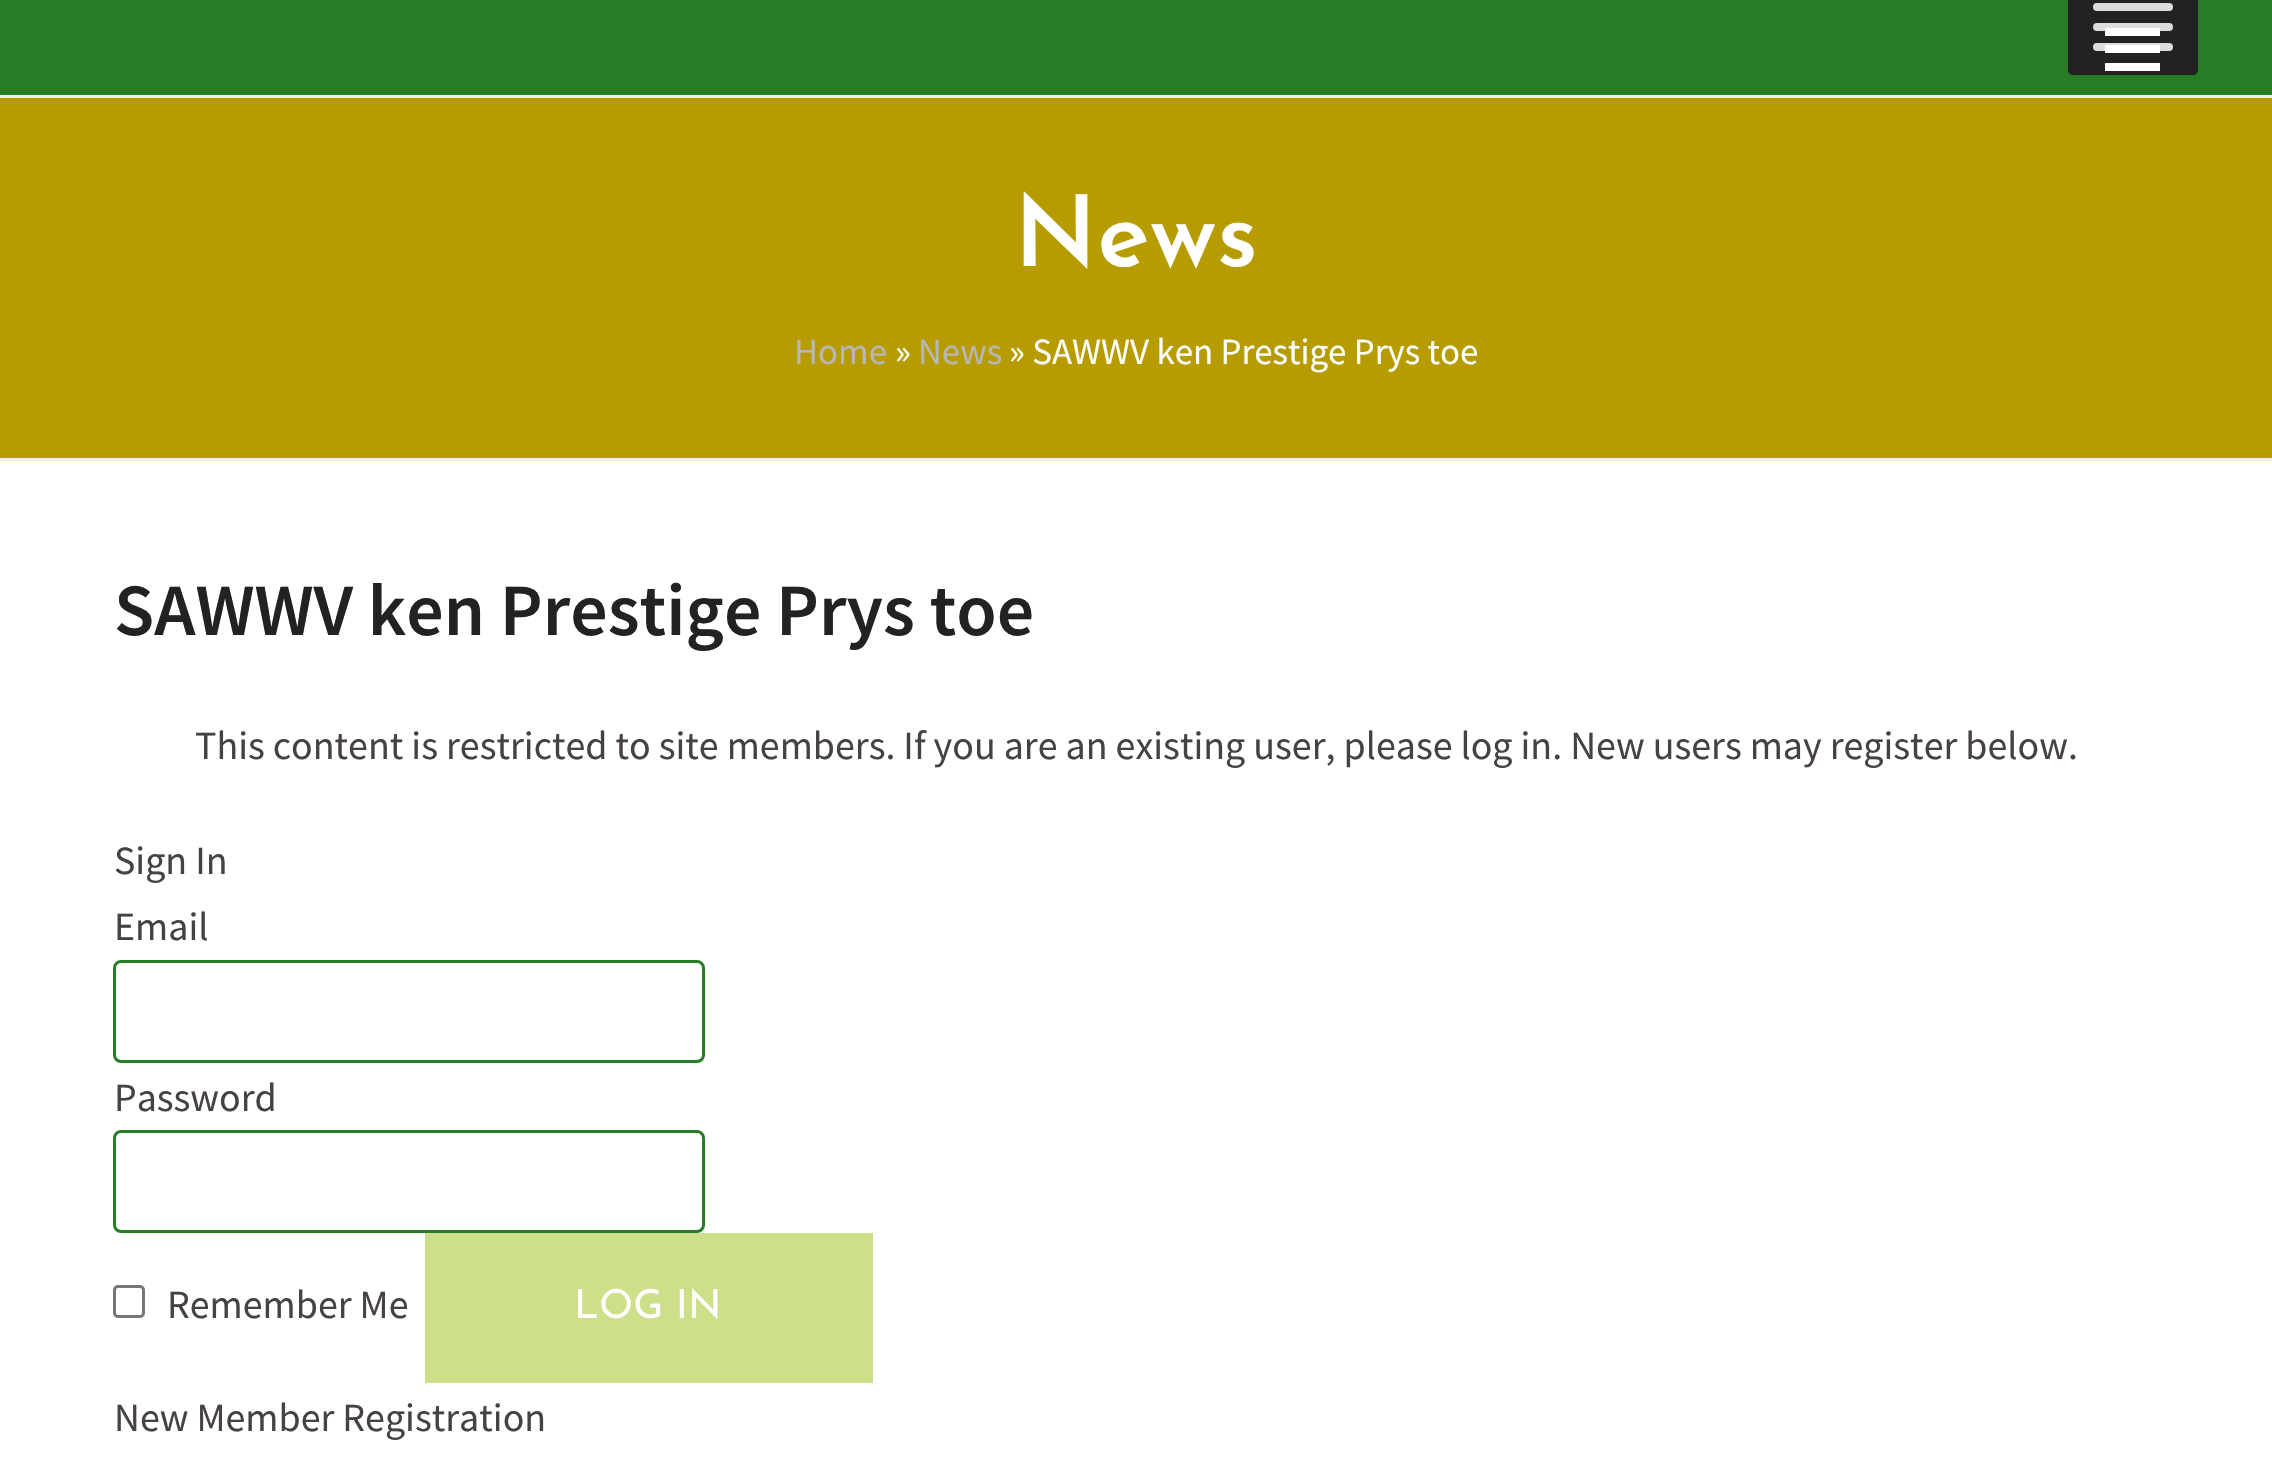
#include "include/core/SkBlurTypes.h"
#include "include/core/SkCanvas.h"
#include "include/core/SkData.h"
#include "include/core/SkFont.h"
#include "include/core/SkFontMgr.h"
#include "include/core/SkImage.h"
#include "include/core/SkMaskFilter.h"
#include "include/core/SkPaint.h"
#include "include/core/SkPathBuilder.h"
#include "include/core/SkTextBlob.h"
#include "include/effects/SkDashPathEffect.h"
#include "include/effects/SkGradientShader.h"
#include "include/utils/SkParsePath.h"

extern sk_sp<SkFontMgr> fontMgr;

static SkFont font(const char* family, int weight, float size, bool italic = false) {
    SkFontStyle style(weight, SkFontStyle::kNormal_Width,
        italic ? SkFontStyle::kItalic_Slant : SkFontStyle::kUpright_Slant);
    SkFont result(fontMgr->matchFamilyStyle(family, style), size);
    result.setSubpixel(true);
    return result;
}

static void drawLabel(SkCanvas* canvas, const char* s, float x, float y, const SkFont& font, SkColor color) {
    SkPaint ink(SkColor4f::FromColor(color));
    ink.setAntiAlias(true);
    canvas->drawString(s, x, y, font, ink);
}

static void fillRect(SkCanvas* canvas, float x, float y, float w, float h, SkColor color) {
    SkPaint ink(SkColor4f::FromColor(color));
    ink.setAntiAlias(true);
    canvas->drawRect(SkRect::MakeXYWH(x, y, w, h), ink);
}

static void fillRRect(SkCanvas* canvas, float x, float y, float w, float h, float radius, SkColor color) {
    SkPaint ink(SkColor4f::FromColor(color));
    ink.setAntiAlias(true);
    canvas->drawRoundRect(SkRect::MakeXYWH(x, y, w, h), radius, radius, ink);
}

static SkPath parsePath(const char* data, bool evenOdd = false) {
    SkPath result = *SkParsePath::FromSVGString(data);
    if (evenOdd) result.setFillType(SkPathFillType::kEvenOdd);
    return result;
}

void draw(SkCanvas* canvas) {
    SkPaint paint;
    paint.setAntiAlias(true);
    canvas->clear(0xFFFFFFFF);
    fillRect(canvas, 0, 0, 2272, 95, 0xFF297C26);
    paint.setColor(0xFF222222);
    canvas->drawPath(parsePath("M2068 0H2198V70C2198 73 2196 75 2193 75H2073C2070 75 2068 73 2068 70Z"), paint);
    fillRRect(canvas, 2093, 3, 80, 8, 4, 0xFFDDDDDD);
    fillRRect(canvas, 2093, 23, 80, 8, 4, 0xFFDDDDDD);
    fillRRect(canvas, 2093, 43, 80, 8, 4, 0xFFDDDDDD);
    fillRect(canvas, 2105, 45, 55, 8, 0xFFFFFFFF);
    fillRect(canvas, 2105, 28, 55, 8, 0xFFFFFFFF);
    fillRect(canvas, 2105, 63, 55, 8, 0xFFFFFFFF);
    fillRect(canvas, 0, 98, 2272, 360, 0xFFB79C01);
    fillRect(canvas, 0, 95, 2272, 3, 0xFFEEEEEE);
    fillRect(canvas, 0, 458, 2272, 3, 0xFFEEEEEE);
    SkFont font1 = font("Josefin Sans", 600, 98.5f);
    drawLabel(canvas, "News", 1014, 266, font1, 0xFFFFFFFF);
    SkFont font2 = font("Source Sans Pro", 400, 36.9f);
    drawLabel(canvas, "Home", 794, 364, font2, 0xFFB7B7B7);
    drawLabel(canvas, "»", 895, 364, font2, 0xFFFFFFFF);
    drawLabel(canvas, "News", 918, 364, font2, 0xFFB7B7B7);
    drawLabel(canvas, "» SAWWV ken Prestige Prys toe", 1009, 364, font2, 0xFFFFFFFF);
    SkFont font3 = font("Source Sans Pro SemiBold", 600, 73.8f);
    drawLabel(canvas, "SAWWV ken Prestige Prys toe", 114, 635, font3, 0xFF222222);
    SkFont font4 = font("Source Sans Pro", 400, 40);
    drawLabel(canvas, "This content is restricted to site members. If you are an existing user, please log in. New users may register below.", 195, 759, font4, 0xFF474242);
    drawLabel(canvas, "Sign In", 114, 874, font4, 0xFF474242);
    drawLabel(canvas, "Email", 114, 940, font4, 0xFF474242);
    paint.setStroke(true);
    paint.setStrokeWidth(3);
    paint.setColor(0xFF297C26);
    canvas->drawRoundRect(SkRect::MakeXYWH(114.5f, 961.5f, 589, 100), 6.5f, 6.5f, paint);
    drawLabel(canvas, "Password", 114, 1111, font4, 0xFF474242);
    canvas->drawRoundRect(SkRect::MakeXYWH(114.5f, 1131.5f, 589, 100), 6.5f, 6.5f, paint);
    paint.setColor(0xFF767676);
    canvas->drawRoundRect(SkRect::MakeXYWH(114.5f, 1286.5f, 29, 30), 3.5f, 3.5f, paint);
    drawLabel(canvas, "Remember Me", 167, 1318, font4, 0xFF474242);
    fillRect(canvas, 425, 1233, 448, 150, 0xFFCEDF89);
    SkFont font5 = font("Josefin Sans", 400, 40);
    drawLabel(canvas, "LOG IN", 574, 1318, font5, 0xFFFFFFFF);
    drawLabel(canvas, "New Member Registration", 114, 1431, font4, 0xFF474242);
}
